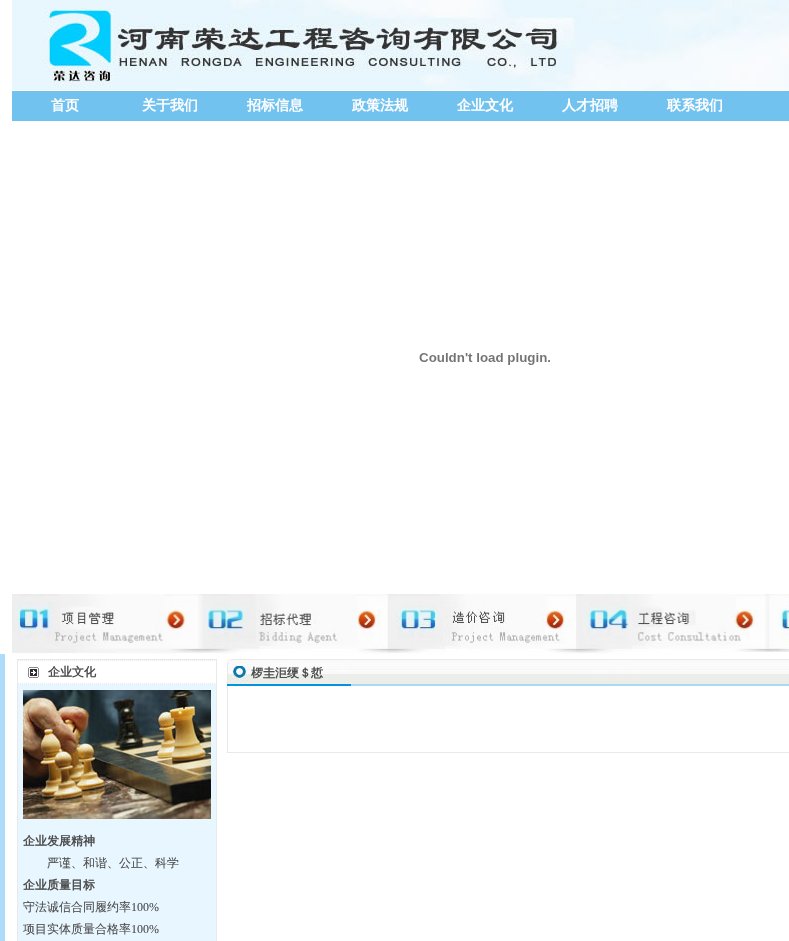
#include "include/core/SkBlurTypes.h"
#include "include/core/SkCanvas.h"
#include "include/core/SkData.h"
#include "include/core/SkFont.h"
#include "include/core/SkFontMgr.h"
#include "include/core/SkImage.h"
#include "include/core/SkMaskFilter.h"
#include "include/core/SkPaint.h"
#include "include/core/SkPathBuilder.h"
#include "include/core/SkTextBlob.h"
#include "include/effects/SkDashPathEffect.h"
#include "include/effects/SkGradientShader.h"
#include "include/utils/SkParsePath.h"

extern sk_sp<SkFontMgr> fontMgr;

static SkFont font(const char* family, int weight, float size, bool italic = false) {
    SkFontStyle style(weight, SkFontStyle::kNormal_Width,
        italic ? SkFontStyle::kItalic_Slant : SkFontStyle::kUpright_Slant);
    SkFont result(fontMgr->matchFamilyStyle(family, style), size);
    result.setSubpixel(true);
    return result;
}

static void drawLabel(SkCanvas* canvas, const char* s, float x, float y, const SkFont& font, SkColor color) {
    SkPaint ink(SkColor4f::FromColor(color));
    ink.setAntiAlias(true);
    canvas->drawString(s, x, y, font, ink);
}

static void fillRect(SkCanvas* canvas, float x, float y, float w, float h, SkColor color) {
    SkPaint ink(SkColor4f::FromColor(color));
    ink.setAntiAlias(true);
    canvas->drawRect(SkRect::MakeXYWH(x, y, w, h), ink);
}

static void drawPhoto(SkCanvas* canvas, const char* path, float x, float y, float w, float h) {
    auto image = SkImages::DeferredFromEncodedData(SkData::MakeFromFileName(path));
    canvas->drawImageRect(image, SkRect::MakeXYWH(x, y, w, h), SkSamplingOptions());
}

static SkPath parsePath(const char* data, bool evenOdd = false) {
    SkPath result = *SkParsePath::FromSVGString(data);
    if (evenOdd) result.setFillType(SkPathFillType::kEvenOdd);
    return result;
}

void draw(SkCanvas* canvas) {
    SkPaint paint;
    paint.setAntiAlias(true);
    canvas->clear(0xFFAEDAFB);
    fillRect(canvas, 0, 0, 789, 654, 0xFFFFFFFF);
    drawPhoto(canvas, "assets/img1.png", 12, 0, 777, 90);
    fillRect(canvas, 12, 91, 777, 30, 0xFF72C2F0);
    SkFont font1 = font("WenQuanYi Zen Hei", 700, 14);
    drawLabel(canvas, "首页", 51, 110, font1, 0xFFFFFFFF);
    drawLabel(canvas, "关于我们", 142, 110, font1, 0xFFFFFFFF);
    drawLabel(canvas, "招标信息", 247, 110, font1, 0xFFFFFFFF);
    drawLabel(canvas, "政策法规", 352, 110, font1, 0xFFFFFFFF);
    drawLabel(canvas, "企业文化", 457, 110, font1, 0xFFFFFFFF);
    drawLabel(canvas, "人才招聘", 562, 110, font1, 0xFFFFFFFF);
    drawLabel(canvas, "联系我们", 667, 110, font1, 0xFFFFFFFF);
    drawPhoto(canvas, "assets/img2.png", 419, 353, 131, 12);
    drawPhoto(canvas, "assets/img3.png", 12, 594, 777, 60);
    fillRect(canvas, 5, 654, 784, 287, 0xFFFFFFFF);
    paint.setStroke(true);
    paint.setStrokeWidth(1);
    paint.setColor(0xFFE9E9E9);
    canvas->drawRect(SkRect::MakeXYWH(17.5f, 659.5f, 199, 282), paint);
    paint.setPathEffect(SkDashPathEffect::Make({{1, 1}}, 0));
    canvas->drawPath(parsePath("M18 660.5H216"), paint);
    paint.setPathEffect(nullptr);
    paint.setPathEffect(SkDashPathEffect::Make({{1, 1}}, 0));
    canvas->drawPath(parsePath("M18 683.5H216"), paint);
    paint.setPathEffect(nullptr);
    drawPhoto(canvas, "assets/img4.png", 28, 667, 11, 11);
    SkFont font2 = font("WenQuanYi Zen Hei", 700, 12);
    drawLabel(canvas, "企业文化", 48, 676, font2, 0xFF4D4D4D);
    fillRect(canvas, 18, 684, 198, 257, 0xFFE8F6FF);
    drawPhoto(canvas, "assets/img5.png", 23, 690, 188, 129);
    drawLabel(canvas, "企业发展精神", 23, 845, font2, 0xFF4D4D4D);
    SkFont font3 = font("WenQuanYi Zen Hei", 500, 12);
    drawLabel(canvas, "严谨、和谐、公正、科学", 47, 867, font3, 0xFF4D4D4D);
    drawLabel(canvas, "企业质量目标", 23, 889, font2, 0xFF4D4D4D);
    drawLabel(canvas, "守法诚信合同履约率", 23, 911, font3, 0xFF4D4D4D);
    SkFont font4 = font("Liberation Serif", 400, 12);
    drawLabel(canvas, "100%", 131, 911, font4, 0xFF4D4D4D);
    drawLabel(canvas, "项目实体质量合格率", 23, 933, font3, 0xFF4D4D4D);
    drawLabel(canvas, "100%", 131, 933, font4, 0xFF4D4D4D);
    drawPhoto(canvas, "assets/img6.png", 227, 659, 24, 27);
    drawPhoto(canvas, "assets/img7.png", 251, 659, 100, 27);
    drawLabel(canvas, "椤圭洰绠＄悊", 251, 677, font2, 0xFF4D4D4D);
    drawPhoto(canvas, "assets/img8.png", 351, 659, 438, 27);
    fillRect(canvas, 227, 752, 562, 1, 0xFFE9E9E9);
    fillRect(canvas, 227, 686, 1, 67, 0xFFE9E9E9);
}
